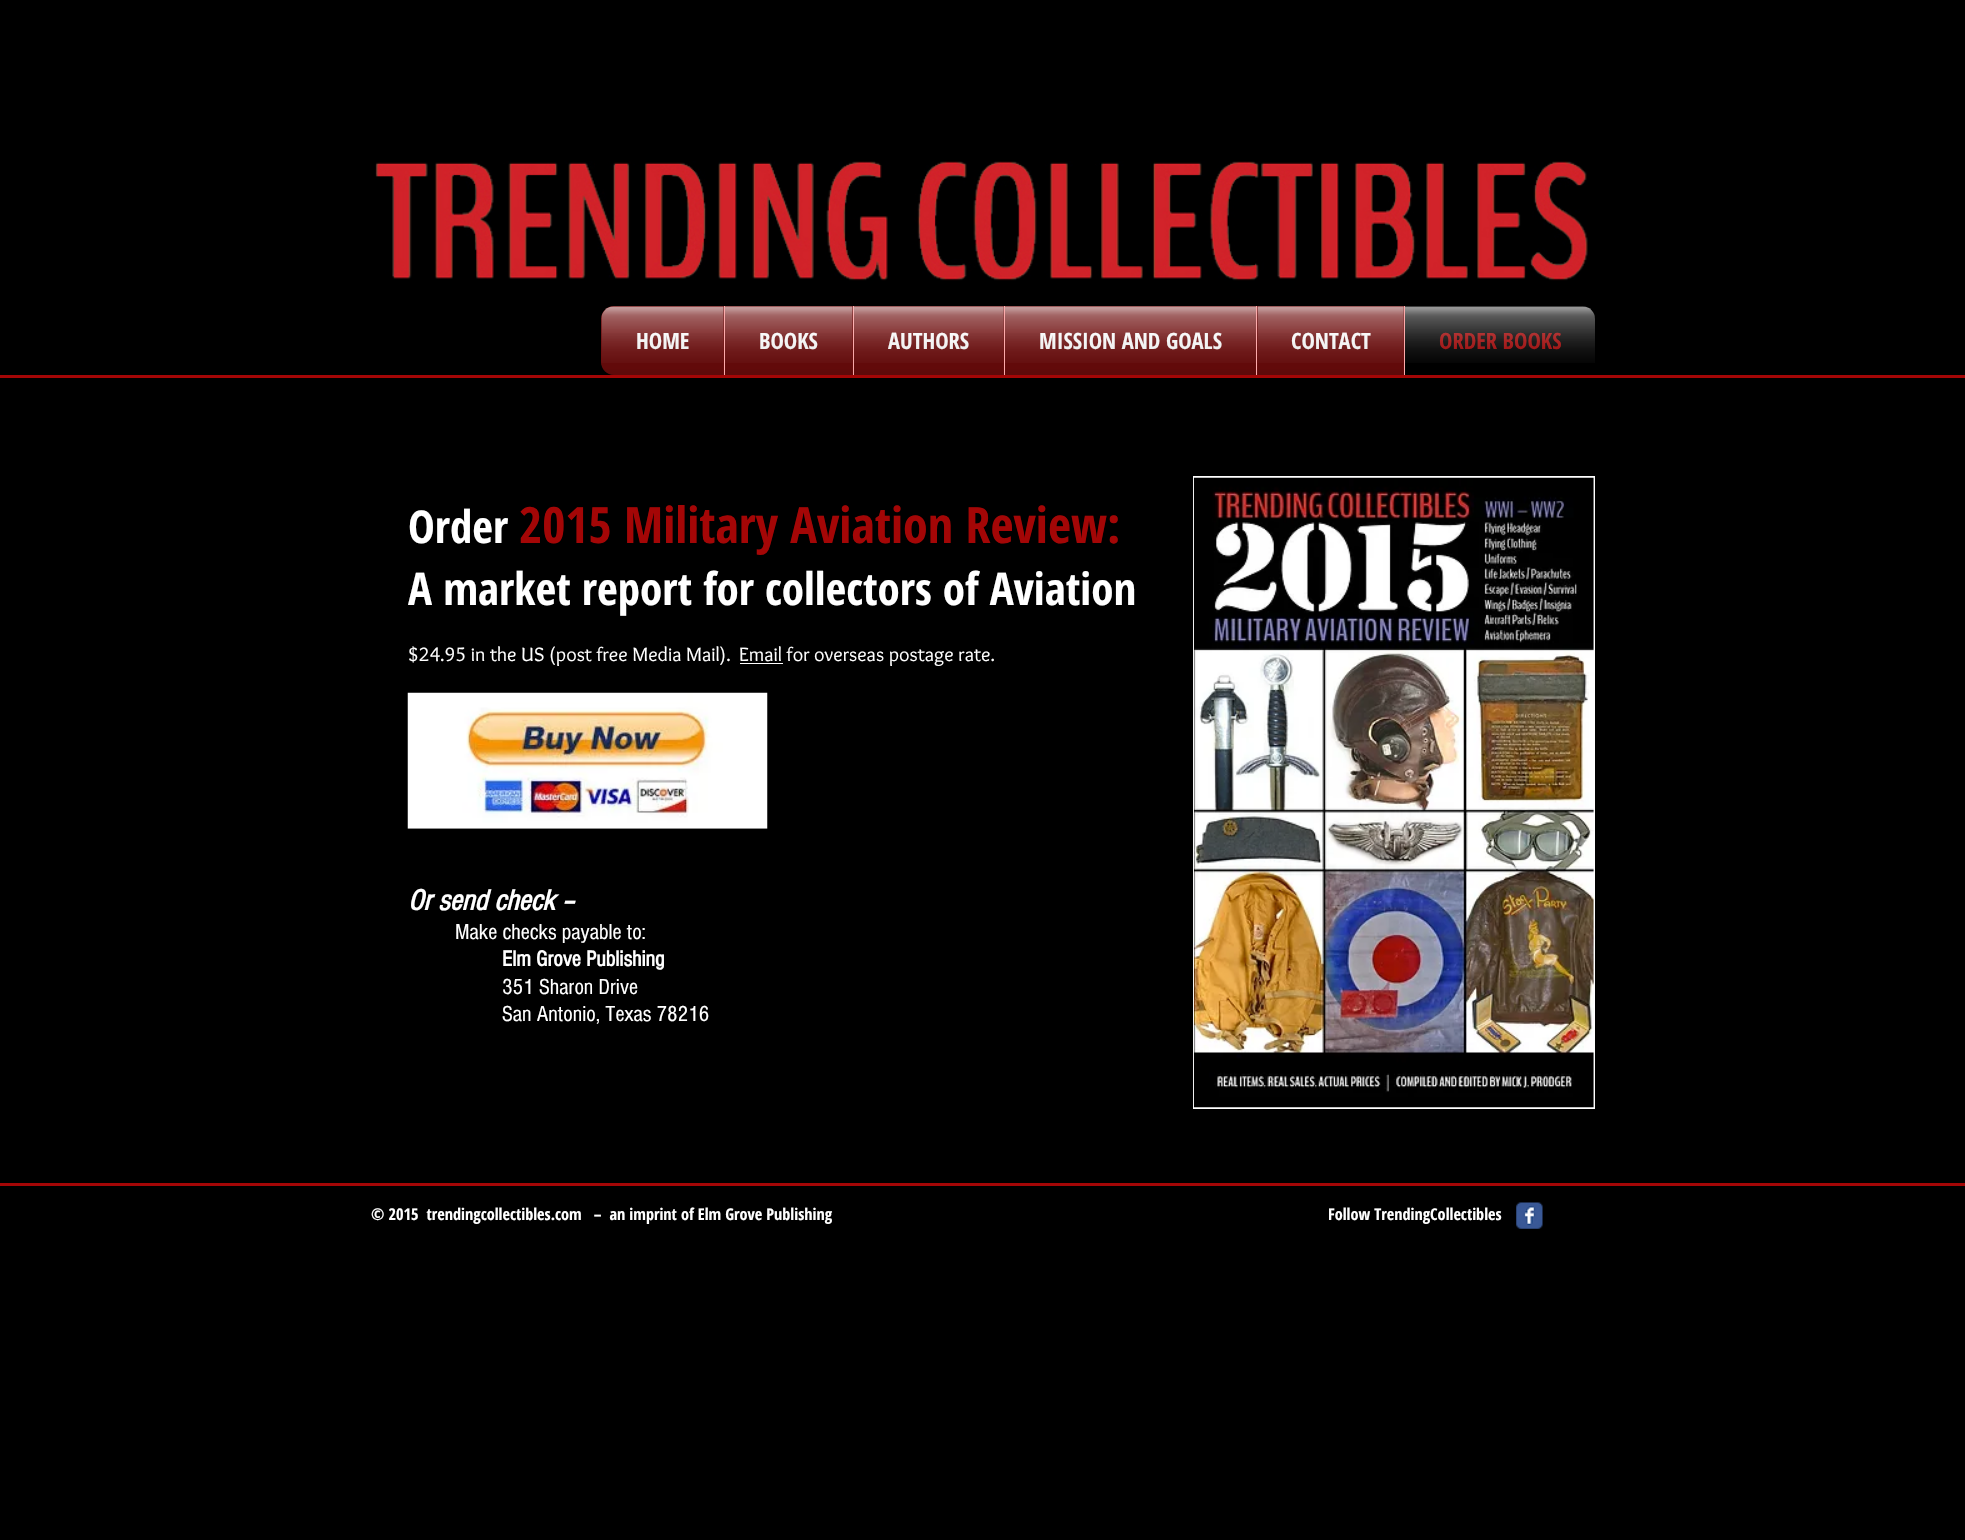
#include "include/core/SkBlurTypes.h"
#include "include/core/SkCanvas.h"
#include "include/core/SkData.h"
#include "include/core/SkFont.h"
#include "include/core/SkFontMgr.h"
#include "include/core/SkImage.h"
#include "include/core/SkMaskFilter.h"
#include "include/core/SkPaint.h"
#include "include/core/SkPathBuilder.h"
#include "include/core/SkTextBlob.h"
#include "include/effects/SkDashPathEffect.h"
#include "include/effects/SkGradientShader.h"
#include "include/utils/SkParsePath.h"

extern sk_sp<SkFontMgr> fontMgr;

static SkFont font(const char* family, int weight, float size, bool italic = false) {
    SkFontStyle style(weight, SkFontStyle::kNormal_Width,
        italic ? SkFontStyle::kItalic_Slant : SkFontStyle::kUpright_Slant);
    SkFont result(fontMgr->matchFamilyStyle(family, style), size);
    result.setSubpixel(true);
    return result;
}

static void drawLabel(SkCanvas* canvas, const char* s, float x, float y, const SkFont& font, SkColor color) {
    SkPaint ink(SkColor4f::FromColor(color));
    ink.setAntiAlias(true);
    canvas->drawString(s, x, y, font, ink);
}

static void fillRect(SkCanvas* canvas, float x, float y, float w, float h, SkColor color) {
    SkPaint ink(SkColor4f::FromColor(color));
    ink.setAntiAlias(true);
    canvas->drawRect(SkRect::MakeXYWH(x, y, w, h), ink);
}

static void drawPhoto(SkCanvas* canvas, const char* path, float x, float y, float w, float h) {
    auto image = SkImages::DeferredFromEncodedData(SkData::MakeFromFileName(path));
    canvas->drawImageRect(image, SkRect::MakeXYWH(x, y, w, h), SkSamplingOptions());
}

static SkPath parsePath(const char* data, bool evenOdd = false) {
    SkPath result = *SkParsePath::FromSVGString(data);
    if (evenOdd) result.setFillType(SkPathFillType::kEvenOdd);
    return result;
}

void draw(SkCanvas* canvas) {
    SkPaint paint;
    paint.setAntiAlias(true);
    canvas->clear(0xFF000000);
    drawPhoto(canvas, "assets/img1.png", 375, 161, 1213, 120);
    drawPhoto(canvas, "assets/img2.png", 601, 306, 994, 57);
    drawPhoto(canvas, "assets/img3.png", 601, 362, 994, 13);
    paint.setColor(0xFF6D0B0B);
    canvas->drawPath(parsePath("M614 306H724V375H614C607 375 601 369 601 362V319C601 312 607 306 614 306Z"), paint);
    SkFont font1 = font("Open Sans Condensed", 700, 22.5f);
    drawLabel(canvas, "HOME", 636, 349, font1, 0xFFFFFFFF);
    drawPhoto(canvas, "assets/img4.png", 601, 306, 123, 57);
    drawPhoto(canvas, "assets/img5.png", 601, 333, 123, 42);
    fillRect(canvas, 725, 306, 128, 69, 0xFF6D0B0B);
    fillRect(canvas, 724, 306, 1, 69, 0xFFFCABAB);
    drawLabel(canvas, "BOOKS", 759, 349, font1, 0xFFFFFFFF);
    drawPhoto(canvas, "assets/img6.png", 725, 306, 128, 57);
    drawPhoto(canvas, "assets/img7.png", 725, 333, 128, 42);
    fillRect(canvas, 854, 306, 150, 69, 0xFF6D0B0B);
    fillRect(canvas, 853, 306, 1, 69, 0xFFFCABAB);
    drawLabel(canvas, "AUTHORS", 888, 349, font1, 0xFFFFFFFF);
    drawPhoto(canvas, "assets/img8.png", 853, 306, 151, 57);
    drawPhoto(canvas, "assets/img9.png", 853, 333, 151, 42);
    fillRect(canvas, 1005, 306, 251, 69, 0xFF6D0B0B);
    fillRect(canvas, 1004, 306, 1, 69, 0xFFFCABAB);
    drawLabel(canvas, "MISSION AND GOALS", 1039, 349, font1, 0xFFFFFFFF);
    drawPhoto(canvas, "assets/img10.png", 1005, 306, 251, 57);
    drawPhoto(canvas, "assets/img11.png", 1005, 333, 251, 42);
    fillRect(canvas, 1257, 306, 147, 69, 0xFF6D0B0B);
    fillRect(canvas, 1256, 306, 1, 69, 0xFFFCABAB);
    drawLabel(canvas, "CONTACT", 1291, 349, font1, 0xFFFFFFFF);
    drawPhoto(canvas, "assets/img12.png", 1257, 306, 147, 57);
    drawPhoto(canvas, "assets/img13.png", 1257, 333, 147, 42);
    paint.setColor(0xFF000000);
    canvas->drawPath(parsePath("M1404 306H1582C1589 306 1595 312 1595 319V362C1595 369 1589 375 1582 375H1404Z"), paint);
    fillRect(canvas, 1404, 306, 1, 69, 0xFFFCABAB);
    drawLabel(canvas, "ORDER BOOKS", 1439, 349, font1, 0xFFA40606);
    drawPhoto(canvas, "assets/img14.png", 1405, 306, 190, 57);
    drawPhoto(canvas, "assets/img15.png", 1440, 333, 121, 16);
    fillRect(canvas, 0, 375, 1965, 3, 0xFFA40606);
    SkFont font2 = font("Open Sans Condensed", 700, 45);
    drawLabel(canvas, "Order", 408, 543, font2, 0xFFFFFFFF);
    SkFont font3 = font("Open Sans Condensed", 700, 50);
    drawLabel(canvas, "2015 Military Aviation Review:", 519, 543, font3, 0xFFA40606);
    drawLabel(canvas, "A market report for collectors of Aviation", 408, 605, font2, 0xFFFFFFFF);
    SkFont font4 = font("Overlock", 400, 20);
    drawLabel(canvas, "$24.95 in the US (post free Media Mail).", 408, 661, font4, 0xFFFFFFFF);
    fillRect(canvas, 740, 663, 43, 1, 0xFFFFFFFF);
    drawLabel(canvas, "Email for overseas postage rate.", 739, 661, font4, 0xFFFFFFFF);
    SkFont font5 = font("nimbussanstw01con", 700, 30, true);
    drawLabel(canvas, "Or send check –", 408, 910, font5, 0xFFFFFFFF);
    SkFont font6 = font("nimbussanstw01con", 400, 22.5f);
    drawLabel(canvas, "Make checks payable to:", 455, 939, font6, 0xFFFFFFFF);
    SkFont font7 = font("nimbussanstw01con", 700, 22.5f);
    drawLabel(canvas, "Elm Grove Publishing", 502, 966, font7, 0xFFFFFFFF);
    drawLabel(canvas, "351 Sharon Drive", 502, 994, font6, 0xFFFFFFFF);
    drawLabel(canvas, "San Antonio, Texas 78216", 502, 1021, font6, 0xFFFFFFFF);
    fillRect(canvas, 1193, 476, 402, 633, 0xFFFFFFFF);
    drawPhoto(canvas, "assets/img16.png", 1193, 477, 401, 631);
    drawPhoto(canvas, "assets/img17.png", 407, 692, 361, 137);
    fillRect(canvas, 0, 1183, 1965, 3, 0xFFA40606);
    SkFont font8 = font("Open Sans Condensed", 700, 16.25f);
    drawLabel(canvas, "© 2015  trendingcollectibles.com   –  an imprint of Elm Grove Publishing", 371, 1220, font8, 0xFFFFFFFF);
    drawLabel(canvas, "Follow TrendingCollectibles", 1328, 1220, font8, 0xFFFFFFFF);
    drawPhoto(canvas, "assets/img18.png", 1516, 1202, 27, 27);
}
